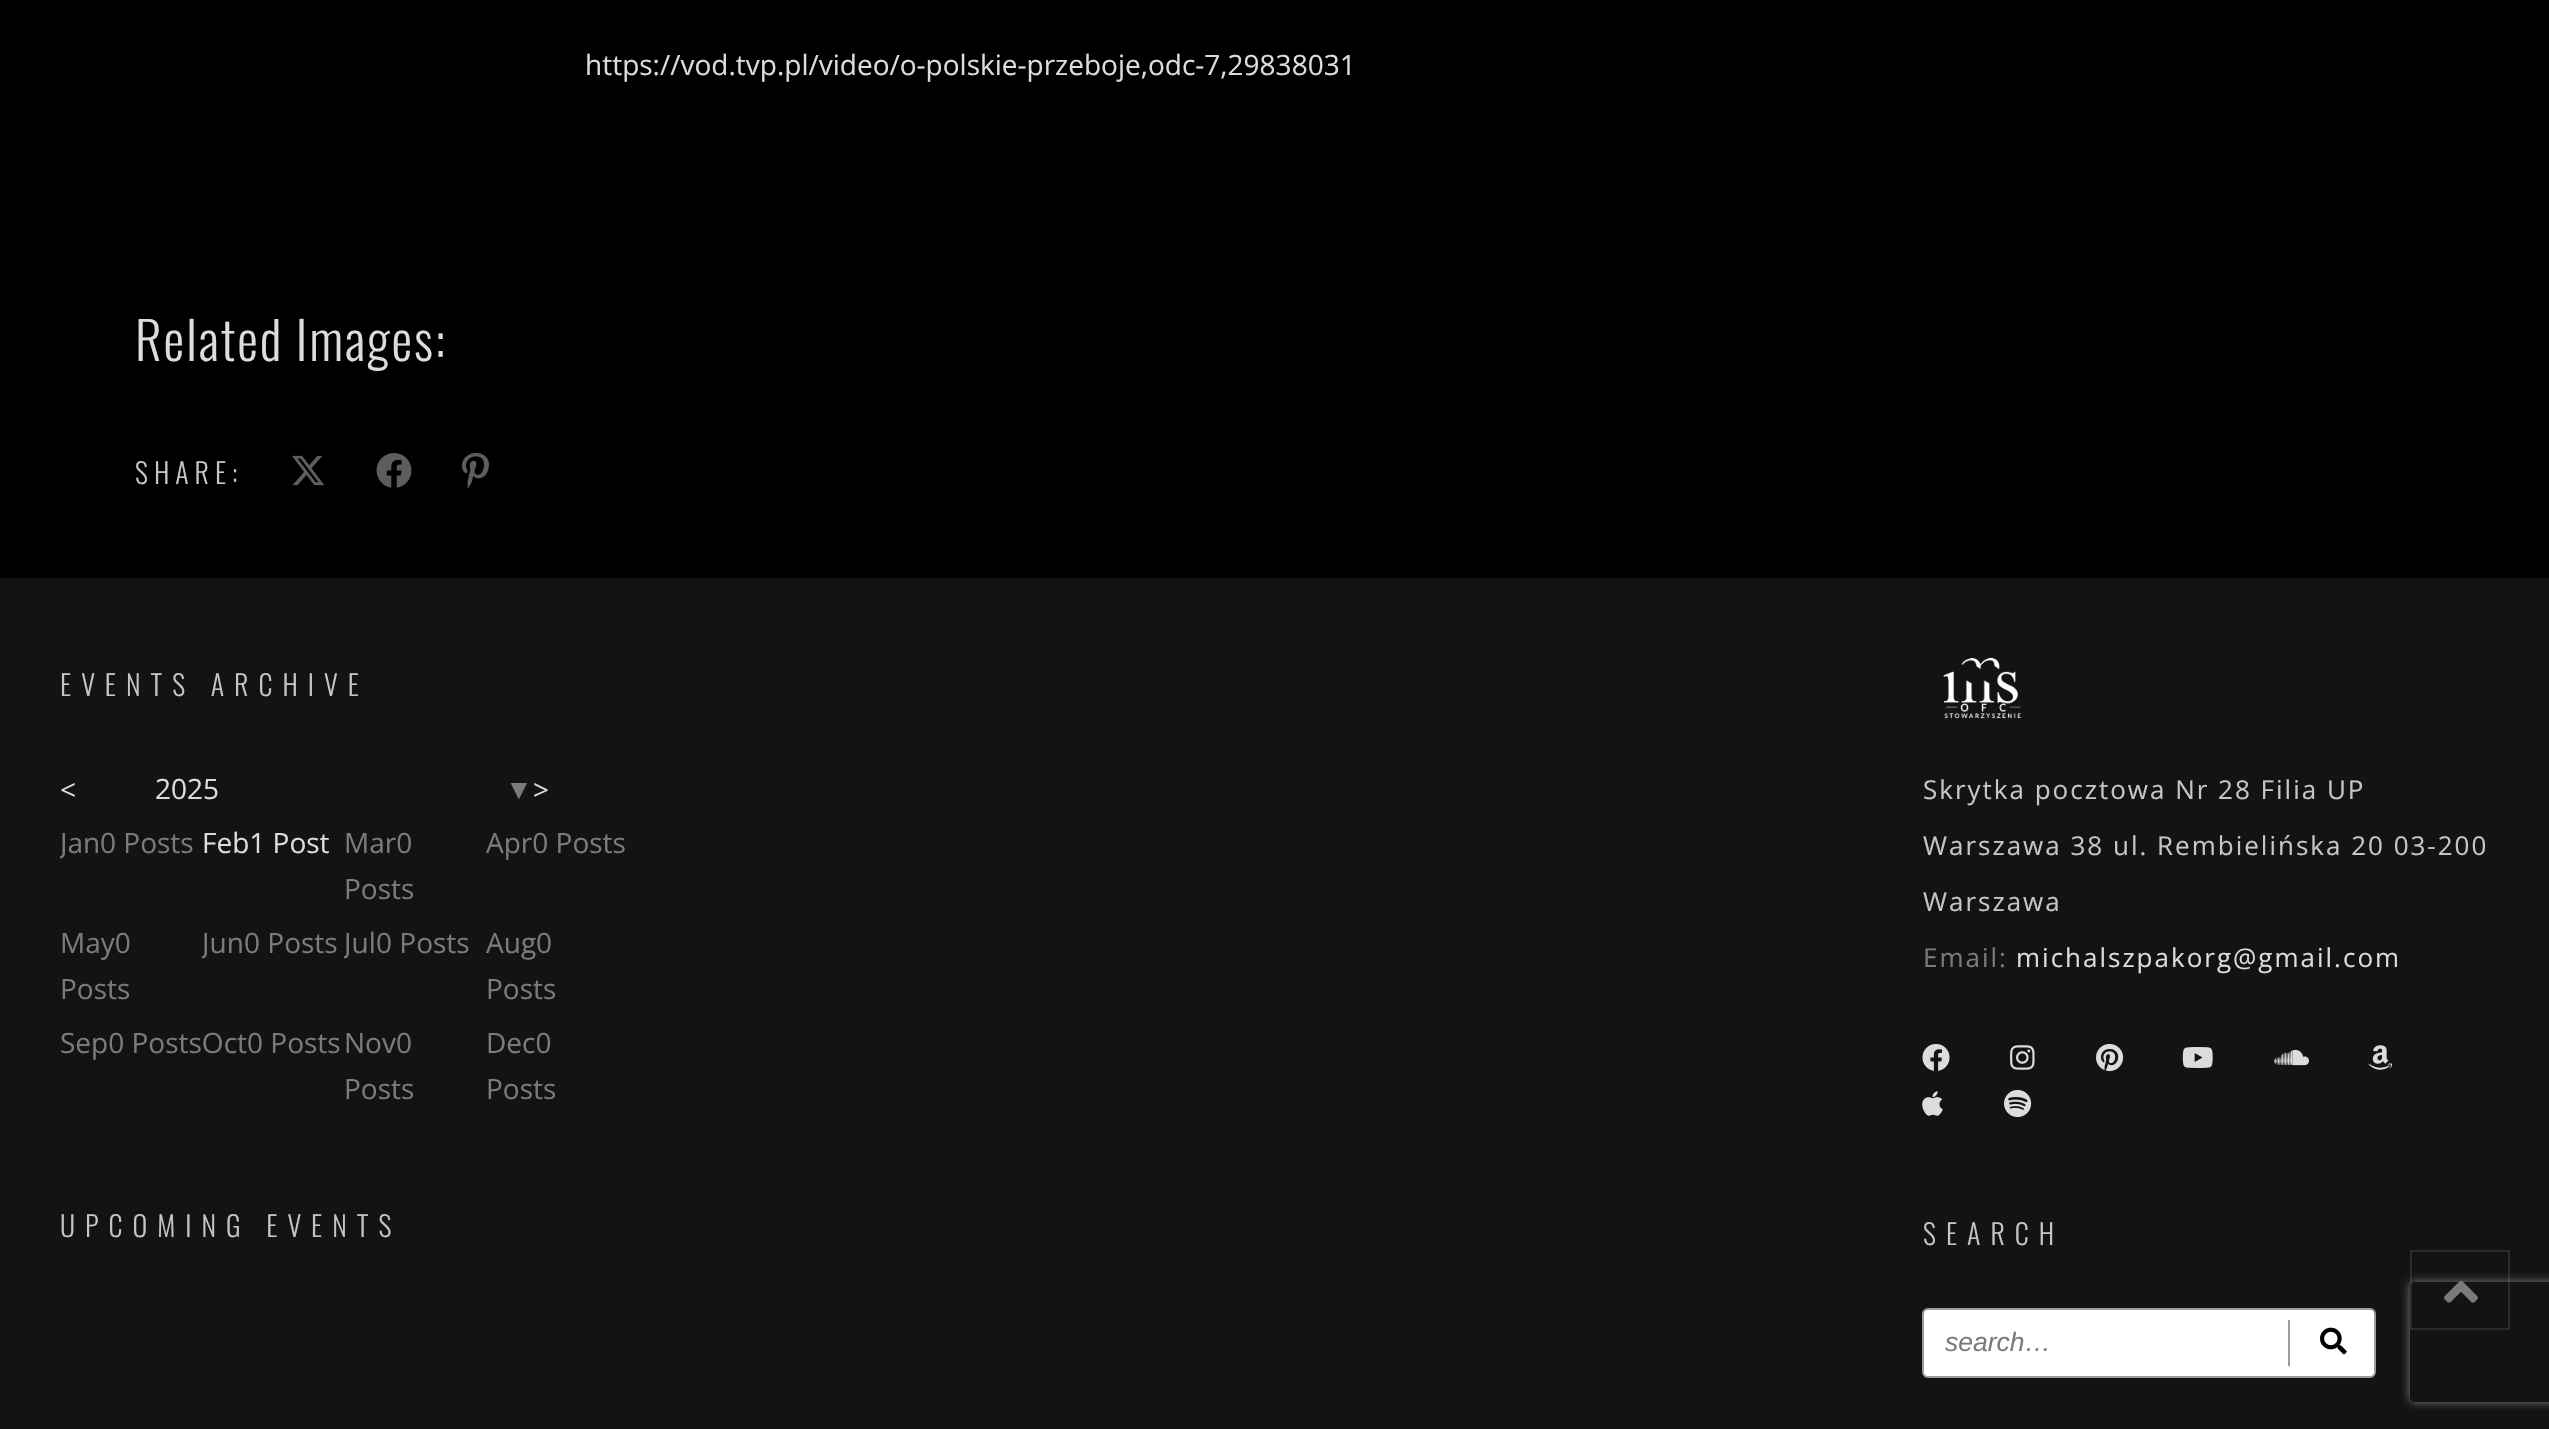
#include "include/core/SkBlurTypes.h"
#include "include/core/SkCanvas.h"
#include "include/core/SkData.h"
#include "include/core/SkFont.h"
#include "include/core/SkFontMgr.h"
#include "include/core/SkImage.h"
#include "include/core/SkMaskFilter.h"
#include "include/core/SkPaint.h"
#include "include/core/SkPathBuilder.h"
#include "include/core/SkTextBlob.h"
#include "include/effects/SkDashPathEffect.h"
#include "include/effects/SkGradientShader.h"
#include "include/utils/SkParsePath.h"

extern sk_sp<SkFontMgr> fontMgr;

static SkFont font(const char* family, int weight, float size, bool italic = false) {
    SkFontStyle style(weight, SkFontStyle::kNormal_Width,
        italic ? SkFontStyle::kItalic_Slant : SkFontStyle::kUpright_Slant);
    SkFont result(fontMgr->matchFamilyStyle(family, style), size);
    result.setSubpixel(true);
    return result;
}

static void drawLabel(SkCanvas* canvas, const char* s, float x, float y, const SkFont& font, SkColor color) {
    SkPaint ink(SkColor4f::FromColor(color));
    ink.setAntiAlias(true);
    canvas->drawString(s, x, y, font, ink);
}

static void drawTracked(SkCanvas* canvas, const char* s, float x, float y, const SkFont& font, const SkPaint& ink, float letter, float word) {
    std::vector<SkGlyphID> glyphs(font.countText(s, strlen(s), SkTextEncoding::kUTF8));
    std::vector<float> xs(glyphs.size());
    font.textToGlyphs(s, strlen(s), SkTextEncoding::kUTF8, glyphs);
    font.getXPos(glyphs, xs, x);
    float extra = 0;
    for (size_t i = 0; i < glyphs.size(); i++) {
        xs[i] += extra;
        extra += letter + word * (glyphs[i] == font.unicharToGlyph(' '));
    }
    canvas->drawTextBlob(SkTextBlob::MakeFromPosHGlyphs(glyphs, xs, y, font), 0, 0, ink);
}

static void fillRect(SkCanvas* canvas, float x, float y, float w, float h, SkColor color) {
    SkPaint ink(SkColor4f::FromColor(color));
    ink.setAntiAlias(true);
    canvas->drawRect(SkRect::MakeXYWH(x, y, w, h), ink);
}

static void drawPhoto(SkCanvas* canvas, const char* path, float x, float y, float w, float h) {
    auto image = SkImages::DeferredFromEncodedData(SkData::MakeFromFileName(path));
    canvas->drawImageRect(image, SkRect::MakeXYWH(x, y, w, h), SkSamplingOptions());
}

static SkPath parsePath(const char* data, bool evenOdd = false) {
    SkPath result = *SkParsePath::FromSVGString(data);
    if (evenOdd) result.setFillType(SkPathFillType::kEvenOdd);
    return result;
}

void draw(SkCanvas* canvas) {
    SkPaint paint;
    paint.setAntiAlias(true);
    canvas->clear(0xFF000000);
    SkFont font1 = font("Open Sans", 400, 28);
    drawLabel(canvas, "https://vod.tvp.pl/video/o-polskie-przeboje,odc-7,29838031", 585, 75, font1, 0xFFDCDCDC);
    SkFont font2 = font("Oswald", 300, 52);
    paint.setColor(0xFFDCDCDC);
    drawTracked(canvas, "Related Images:", 135, 361, font2, paint, 2, 0);
    SkFont font3 = font("Oswald", 300, 28);
    paint.setColor(0xFFC5C5C5);
    drawTracked(canvas, "SHARE:", 135, 484, font3, paint, 6, 0);
    drawPhoto(canvas, "assets/img1.png", 292, 455, 32, 31);
    drawPhoto(canvas, "assets/img2.png", 376, 453, 36, 35);
    drawPhoto(canvas, "assets/img3.png", 462, 452, 27, 36);
    fillRect(canvas, 0, 578, 2549, 851, 0xFF131313);
    drawTracked(canvas, "EVENTS ARCHIVE", 60, 696, font3, paint, 10, 0);
    drawLabel(canvas, "<", 60, 800, font1, 0xFFDCDCDC);
    drawLabel(canvas, "2025", 155, 799, font1, 0xFFDCDCDC);
    SkFont font4 = font("Liberation Sans", 400, 28);
    drawLabel(canvas, "▼", 505, 799, font4, 0xFF7B7B7B);
    drawLabel(canvas, ">", 533, 800, font1, 0xFFDCDCDC);
    canvas->save();
    canvas->clipRect(SkRect::MakeXYWH(60, 818, 142, 100));
    drawLabel(canvas, "Jan", 60, 853, font1, 0xFF7B7B7B);
    canvas->restore();
    drawLabel(canvas, "0 Posts", 100, 853, font1, 0xFF7B7B7B);
    drawLabel(canvas, "Feb1 Post", 202, 853, font1, 0xFFDCDCDC);
    drawLabel(canvas, "Mar0", 344, 853, font1, 0xFF7B7B7B);
    drawLabel(canvas, "Posts", 344, 899, font1, 0xFF7B7B7B);
    drawLabel(canvas, "Apr0 Posts", 486, 853, font1, 0xFF7B7B7B);
    drawLabel(canvas, "May0", 60, 953, font1, 0xFF7B7B7B);
    drawLabel(canvas, "Posts", 60, 999, font1, 0xFF7B7B7B);
    canvas->save();
    canvas->clipRect(SkRect::MakeXYWH(202, 918, 142, 100));
    drawLabel(canvas, "Jun", 202, 953, font1, 0xFF7B7B7B);
    canvas->restore();
    drawLabel(canvas, "0 Posts", 244, 953, font1, 0xFF7B7B7B);
    canvas->save();
    canvas->clipRect(SkRect::MakeXYWH(344, 918, 142, 100));
    drawLabel(canvas, "Jul", 344, 953, font1, 0xFF7B7B7B);
    canvas->restore();
    drawLabel(canvas, "0 Posts", 376, 953, font1, 0xFF7B7B7B);
    drawLabel(canvas, "Aug0", 486, 953, font1, 0xFF7B7B7B);
    drawLabel(canvas, "Posts", 486, 999, font1, 0xFF7B7B7B);
    drawLabel(canvas, "Sep0 PostsOct0 Posts", 60, 1053, font1, 0xFF7B7B7B);
    drawLabel(canvas, "Nov0", 344, 1053, font1, 0xFF7B7B7B);
    drawLabel(canvas, "Posts", 344, 1099, font1, 0xFF7B7B7B);
    drawLabel(canvas, "Dec0", 486, 1053, font1, 0xFF7B7B7B);
    drawLabel(canvas, "Posts", 486, 1099, font1, 0xFF7B7B7B);
    drawTracked(canvas, "UPCOMING EVENTS", 60, 1237, font3, paint, 10, 0);
    drawPhoto(canvas, "assets/img4.png", 1943, 657, 78, 62);
    SkFont font5 = font("Open Sans", 400, 26);
    drawTracked(canvas, "Skrytka pocztowa Nr 28 Filia UP", 1923, 799, font5, paint, 2, 0);
    drawTracked(canvas, "Warszawa 38 ul. Rembielińska 20 03-200", 1923, 855, font5, paint, 2, 0);
    drawTracked(canvas, "Warszawa", 1923, 911, font5, paint, 2, 0);
    paint.setColor(0xFF7B7B7B);
    drawTracked(canvas, "Email:", 1923, 967, font5, paint, 2, 0);
    paint.setColor(0xFFDCDCDC);
    drawTracked(canvas, "michalszpakorg@gmail.com", 2016, 967, font5, paint, 2, 0);
    drawPhoto(canvas, "assets/img5.png", 1922, 1044, 28, 27);
    drawPhoto(canvas, "assets/img6.png", 2010, 1045, 25, 25);
    drawPhoto(canvas, "assets/img7.png", 2096, 1043, 28, 29);
    drawPhoto(canvas, "assets/img8.png", 2182, 1047, 31, 21);
    drawPhoto(canvas, "assets/img9.png", 2274, 1049, 35, 17);
    drawPhoto(canvas, "assets/img10.png", 2368, 1045, 25, 25);
    drawPhoto(canvas, "assets/img11.png", 1922, 1091, 21, 25);
    drawPhoto(canvas, "assets/img12.png", 2004, 1089, 28, 29);
    paint.setColor(0xFFC5C5C5);
    drawTracked(canvas, "SEARCH", 1923, 1245, font3, paint, 10, 0);
    paint.setColor(0xFFFFFFFF);
    canvas->drawRoundRect(SkRect::MakeXYWH(1923, 1309, 452, 68), 5, 5, paint);
    paint.setStroke(true);
    paint.setStrokeWidth(2);
    paint.setColor(0xFF9C9C9C);
    canvas->drawRoundRect(SkRect::MakeXYWH(1923, 1309, 452, 68), 5, 5, paint);
    SkFont font6 = font("Liberation Sans", 400, 26.5f, true);
    drawLabel(canvas, "search…", 1945, 1351, font6, 0xFF7B7B7B);
    fillRect(canvas, 2288, 1320, 2, 46, 0xFF9C9C9C);
    drawPhoto(canvas, "assets/img13.png", 2320, 1327, 27, 28);
    paint.setColor(0xFF2B2B2B);
    canvas->drawRect(SkRect::MakeXYWH(2411, 1251, 98, 78), paint);
    drawPhoto(canvas, "assets/img14.png", 2444, 1281, 34, 22);
    canvas->save();
    canvas->clipPath(parsePath("M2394 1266H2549V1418H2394ZM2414 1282H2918C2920 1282 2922 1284 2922 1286V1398C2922 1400 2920 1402 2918 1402H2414C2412 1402 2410 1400 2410 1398V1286C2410 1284 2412 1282 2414 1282Z", true), true);
    paint.setStroke(false);
    paint.setColor(0xFF808080);
    paint.setMaskFilter(SkMaskFilter::MakeBlur(kNormal_SkBlurStyle, 5));
    canvas->drawRoundRect(SkRect::MakeXYWH(2410, 1282, 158, 120), 4, 4, paint);
    paint.setMaskFilter(nullptr);
    canvas->restore();
}
